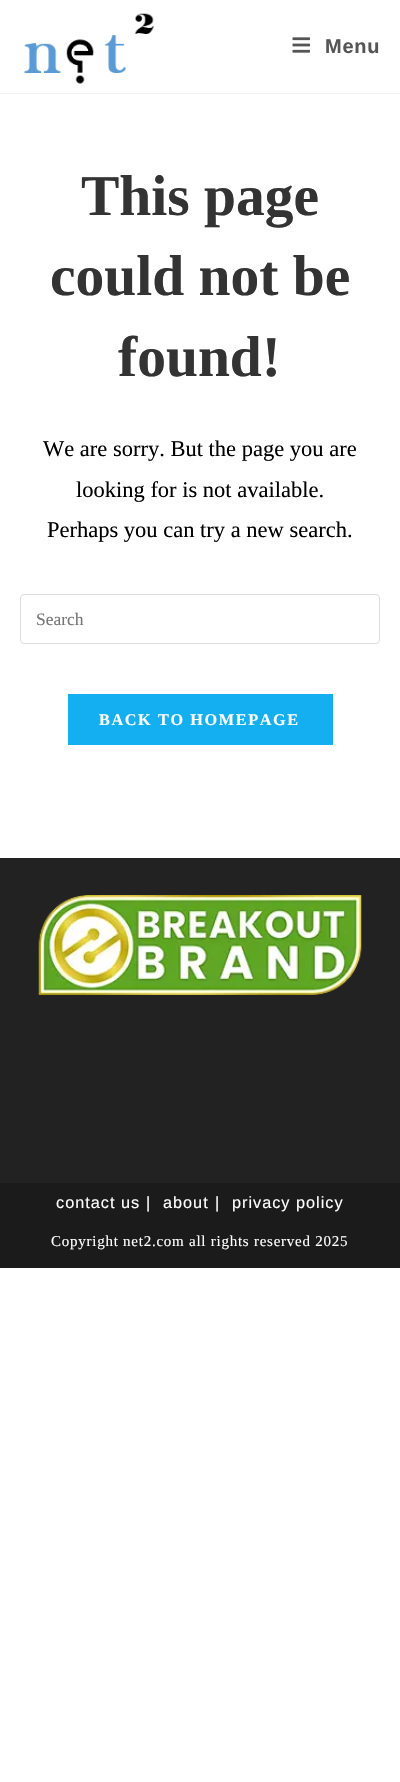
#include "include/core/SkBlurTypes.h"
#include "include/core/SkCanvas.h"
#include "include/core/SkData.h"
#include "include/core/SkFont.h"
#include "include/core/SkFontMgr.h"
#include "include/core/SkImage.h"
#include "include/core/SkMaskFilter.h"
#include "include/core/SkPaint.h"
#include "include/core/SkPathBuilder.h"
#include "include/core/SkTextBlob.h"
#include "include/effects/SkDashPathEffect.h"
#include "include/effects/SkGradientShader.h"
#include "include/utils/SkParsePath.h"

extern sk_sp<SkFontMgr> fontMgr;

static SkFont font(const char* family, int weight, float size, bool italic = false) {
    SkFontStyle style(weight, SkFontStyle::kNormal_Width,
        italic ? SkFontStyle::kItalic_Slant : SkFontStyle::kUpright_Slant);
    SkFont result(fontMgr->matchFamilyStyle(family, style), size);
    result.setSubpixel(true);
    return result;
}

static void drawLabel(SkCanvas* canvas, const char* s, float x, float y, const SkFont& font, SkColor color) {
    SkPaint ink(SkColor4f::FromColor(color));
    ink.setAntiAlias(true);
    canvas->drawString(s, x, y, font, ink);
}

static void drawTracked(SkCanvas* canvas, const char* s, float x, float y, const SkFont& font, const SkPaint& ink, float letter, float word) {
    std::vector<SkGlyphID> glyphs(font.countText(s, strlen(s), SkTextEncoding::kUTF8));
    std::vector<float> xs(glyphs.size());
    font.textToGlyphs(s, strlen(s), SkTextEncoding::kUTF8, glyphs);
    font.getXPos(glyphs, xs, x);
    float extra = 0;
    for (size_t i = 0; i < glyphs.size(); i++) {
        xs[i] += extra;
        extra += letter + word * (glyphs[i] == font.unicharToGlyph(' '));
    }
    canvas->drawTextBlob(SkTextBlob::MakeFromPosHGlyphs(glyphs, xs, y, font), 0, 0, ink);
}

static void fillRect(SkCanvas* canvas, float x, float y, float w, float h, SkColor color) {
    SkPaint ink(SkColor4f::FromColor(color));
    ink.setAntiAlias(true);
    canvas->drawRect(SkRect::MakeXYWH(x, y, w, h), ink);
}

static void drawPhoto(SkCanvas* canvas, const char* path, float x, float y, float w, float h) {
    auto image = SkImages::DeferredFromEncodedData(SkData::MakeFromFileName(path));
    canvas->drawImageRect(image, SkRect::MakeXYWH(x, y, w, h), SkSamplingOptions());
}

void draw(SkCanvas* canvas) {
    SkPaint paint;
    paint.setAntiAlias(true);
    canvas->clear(0xFFFFFFFF);
    fillRect(canvas, 0, 93, 400, 1, 0xFFF1F1F1);
    drawPhoto(canvas, "assets/img1.png", 24, 13, 131, 71);
    drawPhoto(canvas, "assets/img2.png", 292, 37, 18, 16);
    SkFont font1 = font("Liberation Sans", 700, 20);
    paint.setColor(0xFF555555);
    drawTracked(canvas, "Menu", 325, 53, font1, paint, 0.75f, 0);
    SkFont font2 = font("Liberation Serif", 700, 57.5f);
    drawLabel(canvas, "This page", 81, 215, font2, 0xFF333333);
    drawLabel(canvas, "could not be", 50, 295, font2, 0xFF333333);
    drawLabel(canvas, "found!", 118, 376, font2, 0xFF333333);
    SkFont font3 = font("Liberation Serif", 400, 22.5f);
    drawLabel(canvas, "We are sorry. But the page you are", 43, 456, font3, 0xFF000000);
    drawLabel(canvas, "looking for is not available.", 76, 497, font3, 0xFF000000);
    drawLabel(canvas, "Perhaps you can try a new search.", 47, 537, font3, 0xFF000000);
    paint.setStroke(true);
    paint.setStrokeWidth(1);
    paint.setColor(0xFFDDDDDD);
    canvas->drawRoundRect(SkRect::MakeXYWH(20.5f, 594.5f, 359, 49), 3.5f, 3.5f, paint);
    SkFont font4 = font("Liberation Serif", 400, 17.5f);
    drawLabel(canvas, "Search", 36, 625, font4, 0xFF757575);
    fillRect(canvas, 68, 694, 265, 51, 0xFF13AFF0);
    SkFont font5 = font("Liberation Serif", 700, 16.25f);
    paint.setStroke(false);
    paint.setColor(0xFFFFFFFF);
    drawTracked(canvas, "BACK TO HOMEPAGE", 99, 725, font5, paint, 1.6f, 0);
    fillRect(canvas, 0, 858, 400, 325, 0xFF222222);
    drawPhoto(canvas, "assets/img3.png", 38, 895, 324, 100);
    fillRect(canvas, 0, 1183, 400, 85, 0xFF1B1B1B);
    SkFont font6 = font("Liberation Sans", 400, 16.25f);
    drawTracked(canvas, "contact us", 56, 1208, font6, paint, 1, 0);
    drawTracked(canvas, "|", 146, 1208, font6, paint, 1, 0);
    drawTracked(canvas, "about", 163, 1208, font6, paint, 1, 0);
    drawTracked(canvas, "|", 215, 1208, font6, paint, 1, 0);
    drawTracked(canvas, "privacy policy", 232, 1208, font6, paint, 1, 0);
    SkFont font7 = font("Liberation Serif", 400, 15);
    drawTracked(canvas, "Copyright net2.com all rights reserved 2025", 51, 1246, font7, paint, 0.75f, 0);
}
